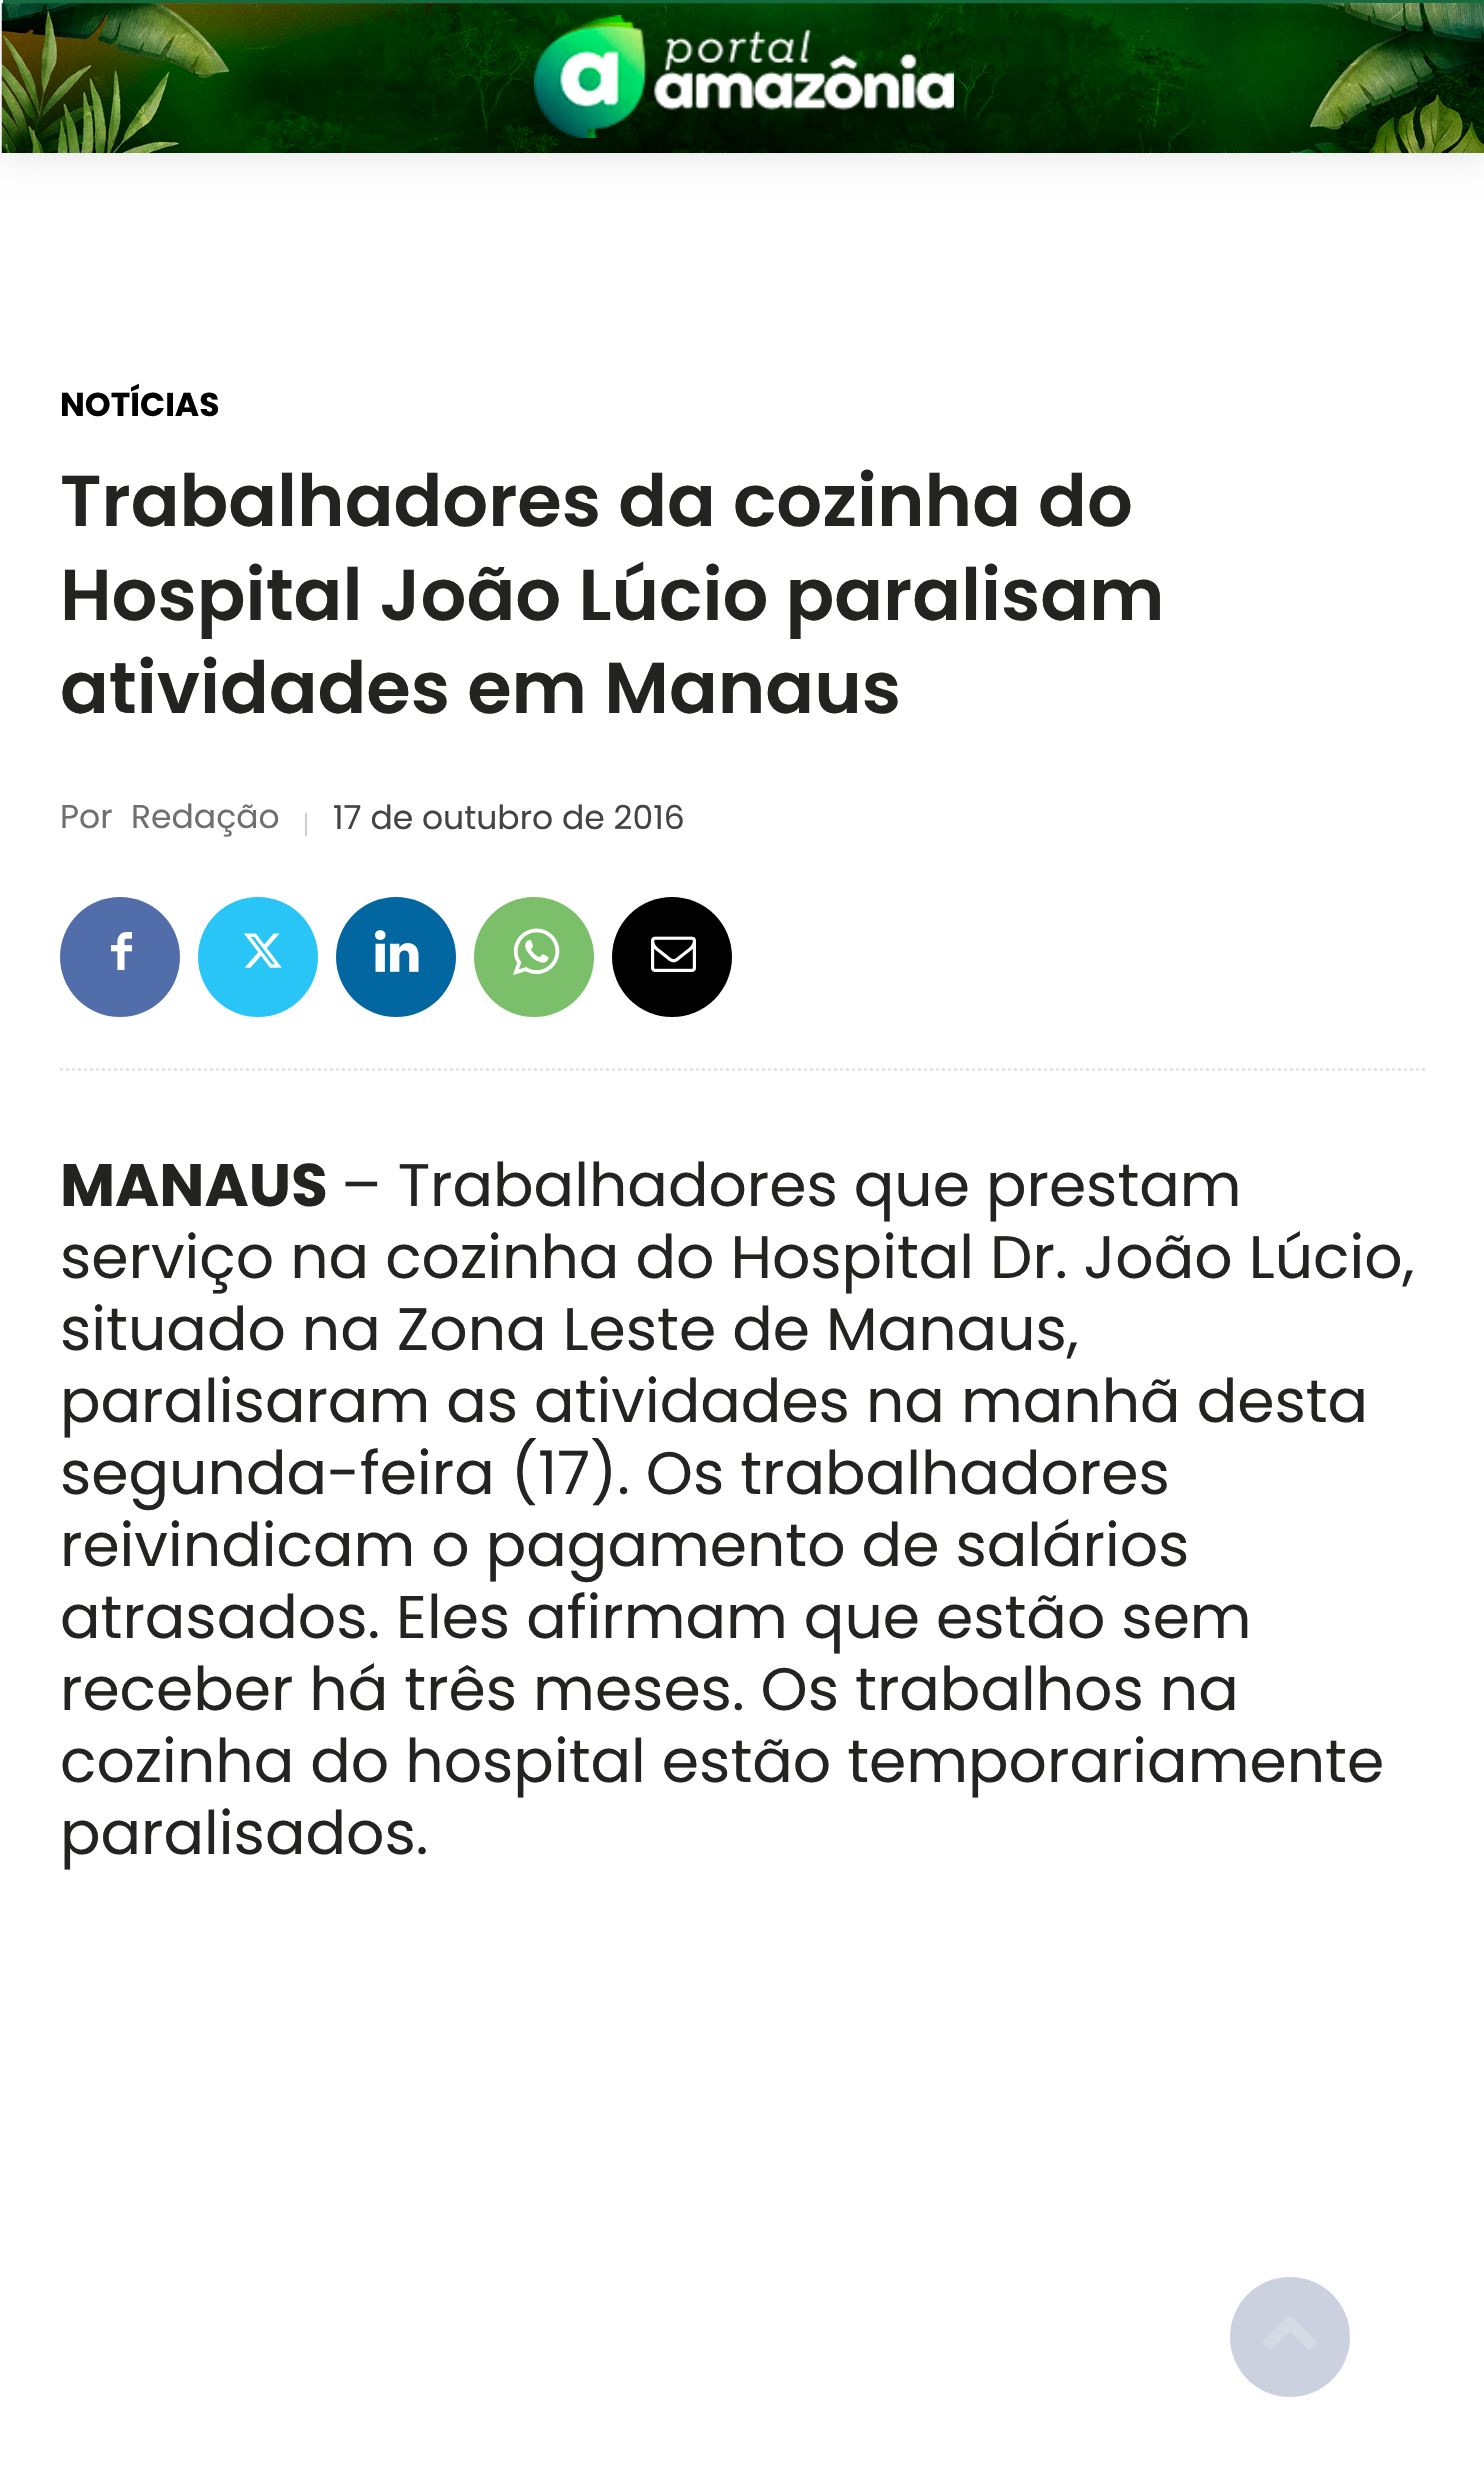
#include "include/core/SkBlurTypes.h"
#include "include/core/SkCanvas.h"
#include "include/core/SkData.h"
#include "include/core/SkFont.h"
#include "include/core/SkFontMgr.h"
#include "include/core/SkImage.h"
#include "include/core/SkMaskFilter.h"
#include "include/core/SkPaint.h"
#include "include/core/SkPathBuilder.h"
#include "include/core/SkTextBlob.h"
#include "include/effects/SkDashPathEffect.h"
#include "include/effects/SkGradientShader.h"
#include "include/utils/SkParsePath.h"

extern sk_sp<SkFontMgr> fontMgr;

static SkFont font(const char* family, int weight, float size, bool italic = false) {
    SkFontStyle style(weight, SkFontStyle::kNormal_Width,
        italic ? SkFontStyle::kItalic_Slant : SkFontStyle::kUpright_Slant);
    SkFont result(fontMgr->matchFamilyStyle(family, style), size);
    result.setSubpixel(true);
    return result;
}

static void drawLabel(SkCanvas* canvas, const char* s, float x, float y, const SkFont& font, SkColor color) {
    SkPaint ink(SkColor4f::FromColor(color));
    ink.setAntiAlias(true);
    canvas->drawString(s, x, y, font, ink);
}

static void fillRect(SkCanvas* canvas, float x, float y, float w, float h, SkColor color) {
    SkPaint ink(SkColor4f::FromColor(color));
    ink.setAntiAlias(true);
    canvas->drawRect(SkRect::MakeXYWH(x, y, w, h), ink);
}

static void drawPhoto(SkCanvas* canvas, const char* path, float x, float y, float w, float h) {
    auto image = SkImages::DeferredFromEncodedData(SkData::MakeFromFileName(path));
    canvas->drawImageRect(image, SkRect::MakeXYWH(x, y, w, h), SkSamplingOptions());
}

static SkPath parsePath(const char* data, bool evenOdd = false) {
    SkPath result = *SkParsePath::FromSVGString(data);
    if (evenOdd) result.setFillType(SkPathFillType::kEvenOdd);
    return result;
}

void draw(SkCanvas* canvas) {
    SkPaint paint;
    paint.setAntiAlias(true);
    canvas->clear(0xFFFFFFFF);
    fillRect(canvas, 3, 0, 1481, 3, 0xFF146C3E);
    drawPhoto(canvas, "assets/img1.png", 1, 3, 1483, 150);
    drawPhoto(canvas, "assets/img2.png", 534, 15, 420, 123);
    canvas->save();
    canvas->clipPath(parsePath("M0 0H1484V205H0ZM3 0H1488V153H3Z", true), true);
    paint.setColor(0x17000000);
    paint.setMaskFilter(SkMaskFilter::MakeBlur(kNormal_SkBlurStyle, 15));
    canvas->drawRect(SkRect::MakeXYWH(3, 6, 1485, 153), paint);
    paint.setMaskFilter(nullptr);
    canvas->restore();
    SkFont font1 = font("Poppins", 700, 33);
    drawLabel(canvas, "NOTÍCIAS", 60, 416, font1, 0xFF000000);
    SkFont font2 = font("Poppins", 600, 72);
    drawLabel(canvas, "Trabalhadores da cozinha do", 60, 526, font2, 0xFF232322);
    drawLabel(canvas, "Hospital João Lúcio paralisam", 60, 620, font2, 0xFF232322);
    drawLabel(canvas, "atividades em Manaus", 60, 713, font2, 0xFF232322);
    SkFont font3 = font("Poppins", 400, 33);
    drawLabel(canvas, "Por", 60, 828, font3, 0xFF706F6F);
    drawLabel(canvas, "Redação", 131, 828, font3, 0xFF706F6F);
    fillRect(canvas, 305, 813, 2, 23, 0xFFCCCCCC);
    drawLabel(canvas, "17 de outubro de 2016", 333, 829, font3, 0xFF444444);
    paint.setColor(0xFF516EAB);
    canvas->drawCircle(120, 957, 60, paint);
    drawPhoto(canvas, "assets/img3.png", 111, 932, 21, 38);
    paint.setColor(0xFF29C5F6);
    canvas->drawCircle(258, 957, 60, paint);
    drawPhoto(canvas, "assets/img4.png", 244, 933, 38, 35);
    paint.setColor(0xFF0266A0);
    canvas->drawCircle(396, 957, 60, paint);
    drawPhoto(canvas, "assets/img5.png", 375, 930, 44, 42);
    paint.setColor(0xFF7BBF6A);
    canvas->drawCircle(534, 957, 60, paint);
    drawPhoto(canvas, "assets/img6.png", 513, 928, 47, 48);
    paint.setColor(0xFF000000);
    canvas->drawCircle(672, 957, 60, paint);
    drawPhoto(canvas, "assets/img7.png", 651, 936, 45, 36);
    paint.setStroke(true);
    paint.setStrokeWidth(3);
    paint.setColor(0xFFE6E6E6);
    paint.setPathEffect(SkDashPathEffect::Make({{3, 3}}, 0));
    canvas->drawPath(parsePath("M60 1069.5H1425"), paint);
    paint.setPathEffect(nullptr);
    SkFont font4 = font("Poppins", 700, 60);
    drawLabel(canvas, "MANAUS", 60, 1206, font4, 0xFF232322);
    SkFont font5 = font("Poppins", 400, 60);
    drawLabel(canvas, "– Trabalhadores que prestam", 341, 1206, font5, 0xFF232322);
    drawLabel(canvas, "serviço na cozinha do Hospital Dr. João Lúcio,", 60, 1278, font5, 0xFF232322);
    drawLabel(canvas, "situado na Zona Leste de Manaus,", 60, 1350, font5, 0xFF232322);
    drawLabel(canvas, "paralisaram as atividades na manhã desta", 60, 1422, font5, 0xFF232322);
    drawLabel(canvas, "segunda-feira (17). Os trabalhadores", 60, 1494, font5, 0xFF232322);
    drawLabel(canvas, "reivindicam o pagamento de salários", 60, 1566, font5, 0xFF232322);
    drawLabel(canvas, "atrasados. Eles afirmam que estão sem", 60, 1638, font5, 0xFF232322);
    drawLabel(canvas, "receber há três meses. Os trabalhos na", 60, 1710, font5, 0xFF232322);
    drawLabel(canvas, "cozinha do hospital estão temporariamente", 60, 1782, font5, 0xFF232322);
    drawLabel(canvas, "paralisados.", 60, 1854, font5, 0xFF232322);
    paint.setStroke(false);
    paint.setColor(0xFFCCD1DF);
    canvas->drawCircle(1290, 2337, 60, paint);
    drawPhoto(canvas, "assets/img8.png", 1263, 2315, 54, 35);
}
